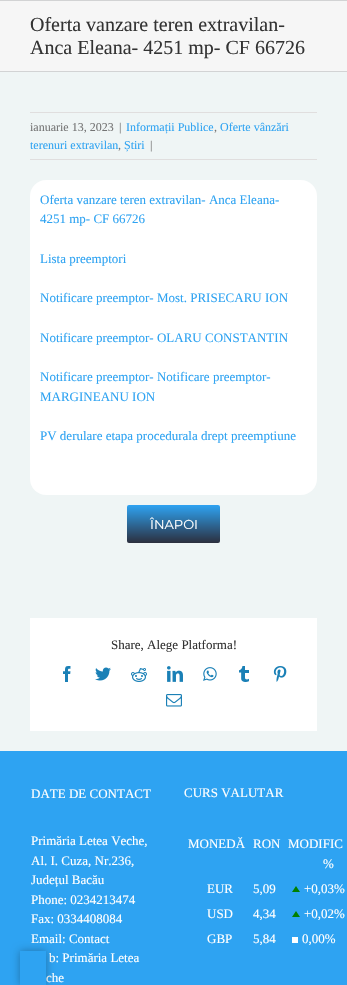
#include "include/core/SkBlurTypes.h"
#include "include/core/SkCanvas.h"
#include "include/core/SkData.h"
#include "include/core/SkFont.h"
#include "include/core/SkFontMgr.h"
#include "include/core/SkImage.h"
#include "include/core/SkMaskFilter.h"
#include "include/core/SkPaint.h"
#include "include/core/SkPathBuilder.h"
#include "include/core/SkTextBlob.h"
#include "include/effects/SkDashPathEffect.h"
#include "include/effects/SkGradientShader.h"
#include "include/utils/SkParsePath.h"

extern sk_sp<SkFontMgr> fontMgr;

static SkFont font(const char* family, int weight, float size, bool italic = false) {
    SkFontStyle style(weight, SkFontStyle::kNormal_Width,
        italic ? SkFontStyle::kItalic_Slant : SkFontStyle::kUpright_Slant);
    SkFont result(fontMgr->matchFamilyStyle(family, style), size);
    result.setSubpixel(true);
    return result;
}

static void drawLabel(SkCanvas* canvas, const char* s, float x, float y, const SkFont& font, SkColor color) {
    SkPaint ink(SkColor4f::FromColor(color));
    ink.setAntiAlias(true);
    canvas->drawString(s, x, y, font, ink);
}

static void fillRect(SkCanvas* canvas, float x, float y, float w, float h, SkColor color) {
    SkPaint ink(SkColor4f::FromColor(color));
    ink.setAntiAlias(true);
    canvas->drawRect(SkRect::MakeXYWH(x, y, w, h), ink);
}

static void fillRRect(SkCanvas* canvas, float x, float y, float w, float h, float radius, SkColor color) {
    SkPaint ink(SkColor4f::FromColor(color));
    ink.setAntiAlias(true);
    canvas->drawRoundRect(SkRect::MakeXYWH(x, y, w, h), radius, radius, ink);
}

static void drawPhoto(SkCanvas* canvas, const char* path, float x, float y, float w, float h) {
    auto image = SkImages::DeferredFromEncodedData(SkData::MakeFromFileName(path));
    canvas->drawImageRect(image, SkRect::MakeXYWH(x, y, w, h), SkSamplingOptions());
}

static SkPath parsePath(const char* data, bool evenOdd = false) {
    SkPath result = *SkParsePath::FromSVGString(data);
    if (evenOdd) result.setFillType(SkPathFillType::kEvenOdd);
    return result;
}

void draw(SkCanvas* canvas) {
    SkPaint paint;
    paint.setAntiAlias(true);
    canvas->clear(0xFFEFF5F5);
    fillRect(canvas, 0, 1, 347, 70, 0xFFF6F6F6);
    fillRect(canvas, 0, 0, 347, 1, 0xFFD2D3D4);
    fillRect(canvas, 0, 71, 347, 1, 0xFFD2D3D4);
    SkFont font1 = font("Liberation Serif", 400, 20);
    drawLabel(canvas, "Oferta vanzare teren extravilan-", 30, 31, font1, 0xFF333333);
    drawLabel(canvas, "Anca Eleana- 4251 mp- CF 66726", 30, 54, font1, 0xFF333333);
    fillRect(canvas, 30, 112, 287, 1, 0xFFE0DEDE);
    fillRect(canvas, 30, 159, 287, 1, 0xFFE0DEDE);
    SkFont font2 = font("Liberation Serif", 400, 12);
    drawLabel(canvas, "ianuarie 13, 2023", 30, 131, font2, 0xFF747474);
    drawLabel(canvas, "|", 119, 131, font2, 0xFF747474);
    drawLabel(canvas, "Informații Publice", 126, 131, font2, 0xFF2EA3F2);
    drawLabel(canvas, ",", 214, 131, font2, 0xFF747474);
    drawLabel(canvas, "Oferte vânzări", 220, 131, font2, 0xFF2EA3F2);
    drawLabel(canvas, "terenuri extravilan", 30, 149, font2, 0xFF2EA3F2);
    drawLabel(canvas, ",", 118, 149, font2, 0xFF747474);
    drawLabel(canvas, "Știri", 124, 149, font2, 0xFF2EA3F2);
    drawLabel(canvas, "|", 150, 149, font2, 0xFF747474);
    fillRRect(canvas, 30, 180, 287, 315, 16, 0xFFFFFFFF);
    SkFont font3 = font("Liberation Serif", 400, 13);
    drawLabel(canvas, "Oferta vanzare teren extravilan- Anca Eleana-", 40, 204, font3, 0xFF2EA3F2);
    drawLabel(canvas, "4251 mp- CF 66726", 40, 223, font3, 0xFF2EA3F2);
    drawLabel(canvas, "Lista preemptori", 40, 263, font3, 0xFF2EA3F2);
    drawLabel(canvas, "Notificare preemptor- Most. PRISECARU ION", 40, 302, font3, 0xFF2EA3F2);
    drawLabel(canvas, "Notificare preemptor- OLARU CONSTANTIN", 40, 342, font3, 0xFF2EA3F2);
    drawLabel(canvas, "Notificare preemptor- Notificare preemptor-", 40, 381, font3, 0xFF2EA3F2);
    drawLabel(canvas, "MARGINEANU ION", 40, 401, font3, 0xFF2EA3F2);
    drawLabel(canvas, "PV derulare etapa procedurala drept preemptiune", 40, 440, font3, 0xFF2EA3F2);
    {
        const SkColor colors[] = {0xFF2EA3F2, 0xFF2C2F3E};
        const float stops[] = {0, 1};
        const SkPoint ends[] = {{174, 505}, {174, 543}};
        paint.setShader(SkGradientShader::MakeLinear(ends, colors, stops, 2, SkTileMode::kClamp));
        paint.setAlpha(255);
    }
    canvas->drawRoundRect(SkRect::MakeXYWH(127, 505, 93, 38), 2, 2, paint);
    SkFont font4 = font("Montserrat", 400, 13);
    drawLabel(canvas, "ÎNAPOI", 150, 529, font4, 0xFFFFFFFF);
    fillRect(canvas, 30, 618, 287, 113, 0xFFFFFFFF);
    drawLabel(canvas, "Share, Alege Platforma!", 111, 649, font3, 0xFF333333);
    drawPhoto(canvas, "assets/img1.png", 63, 666, 8, 16);
    drawPhoto(canvas, "assets/img2.png", 95, 667, 16, 14);
    drawPhoto(canvas, "assets/img3.png", 131, 668, 16, 14);
    drawPhoto(canvas, "assets/img4.png", 167, 666, 16, 16);
    drawPhoto(canvas, "assets/img5.png", 203, 667, 14, 14);
    drawPhoto(canvas, "assets/img6.png", 239, 666, 10, 16);
    drawPhoto(canvas, "assets/img7.png", 273, 666, 14, 16);
    drawPhoto(canvas, "assets/img8.png", 166, 694, 16, 13);
    fillRect(canvas, 0, 751, 347, 234, 0xFF2EA3F2);
    drawLabel(canvas, "DATE DE CONTACT", 31, 798, font3, 0xFFFFFFFF);
    drawLabel(canvas, "Primăria Letea Veche,", 31, 845, font3, 0xFFFFFFFF);
    drawLabel(canvas, "Al. I. Cuza, Nr.236,", 31, 865, font3, 0xFFFFFFFF);
    drawLabel(canvas, "Județul Bacău", 31, 884, font3, 0xFFFFFFFF);
    drawLabel(canvas, "Phone: 0234213474", 31, 904, font3, 0xFFFFFFFF);
    drawLabel(canvas, "Fax: 0334408084", 31, 923, font3, 0xFFFFFFFF);
    drawLabel(canvas, "Email: Contact", 31, 943, font3, 0xFFFFFFFF);
    drawLabel(canvas, "b: Primăria Letea", 49, 962, font3, 0xFFFFFFFF);
    drawLabel(canvas, "che", 46, 982, font3, 0xFFFFFFFF);
    drawLabel(canvas, "CURS VALUTAR", 184, 797, font3, 0xFFFFFFFF);
    drawLabel(canvas, "MONEDĂ", 188, 848, font3, 0xFFFFFFFF);
    drawLabel(canvas, "RON", 253, 848, font3, 0xFFFFFFFF);
    drawLabel(canvas, "MODIFIC", 288, 848, font3, 0xFFFFFFFF);
    drawLabel(canvas, "%", 323, 868, font3, 0xFFFFFFFF);
    drawLabel(canvas, "EUR", 207, 893, font3, 0xFFFFFFFF);
    drawLabel(canvas, "5,09", 253, 893, font3, 0xFFFFFFFF);
    paint.setShader(nullptr);
    paint.setColor(0xFF008000);
    canvas->drawPath(parsePath("M300 892H292L296 886ZM300 917H292L296 911Z"), paint);
    drawLabel(canvas, "+0,03%", 304, 893, font3, 0xFFFFFFFF);
    drawLabel(canvas, "USD", 207, 918, font3, 0xFFFFFFFF);
    drawLabel(canvas, "4,34", 253, 918, font3, 0xFFFFFFFF);
    drawLabel(canvas, "+0,02%", 304, 918, font3, 0xFFFFFFFF);
    drawLabel(canvas, "GBP", 207, 943, font3, 0xFFFFFFFF);
    drawLabel(canvas, "5,84", 253, 943, font3, 0xFFFFFFFF);
    fillRect(canvas, 292, 937, 6, 6, 0xFFFFFFFF);
    drawLabel(canvas, "0,00%", 302, 943, font3, 0xFFFFFFFF);
    paint.setColor(0x4D000000);
    paint.setMaskFilter(SkMaskFilter::MakeBlur(kNormal_SkBlurStyle, 4.5f));
    canvas->drawRect(SkRect::MakeXYWH(20, 951, 26, 34), paint);
    paint.setMaskFilter(nullptr);
    fillRect(canvas, 20, 951, 26, 34, 0xFF2EA3F2);
}
